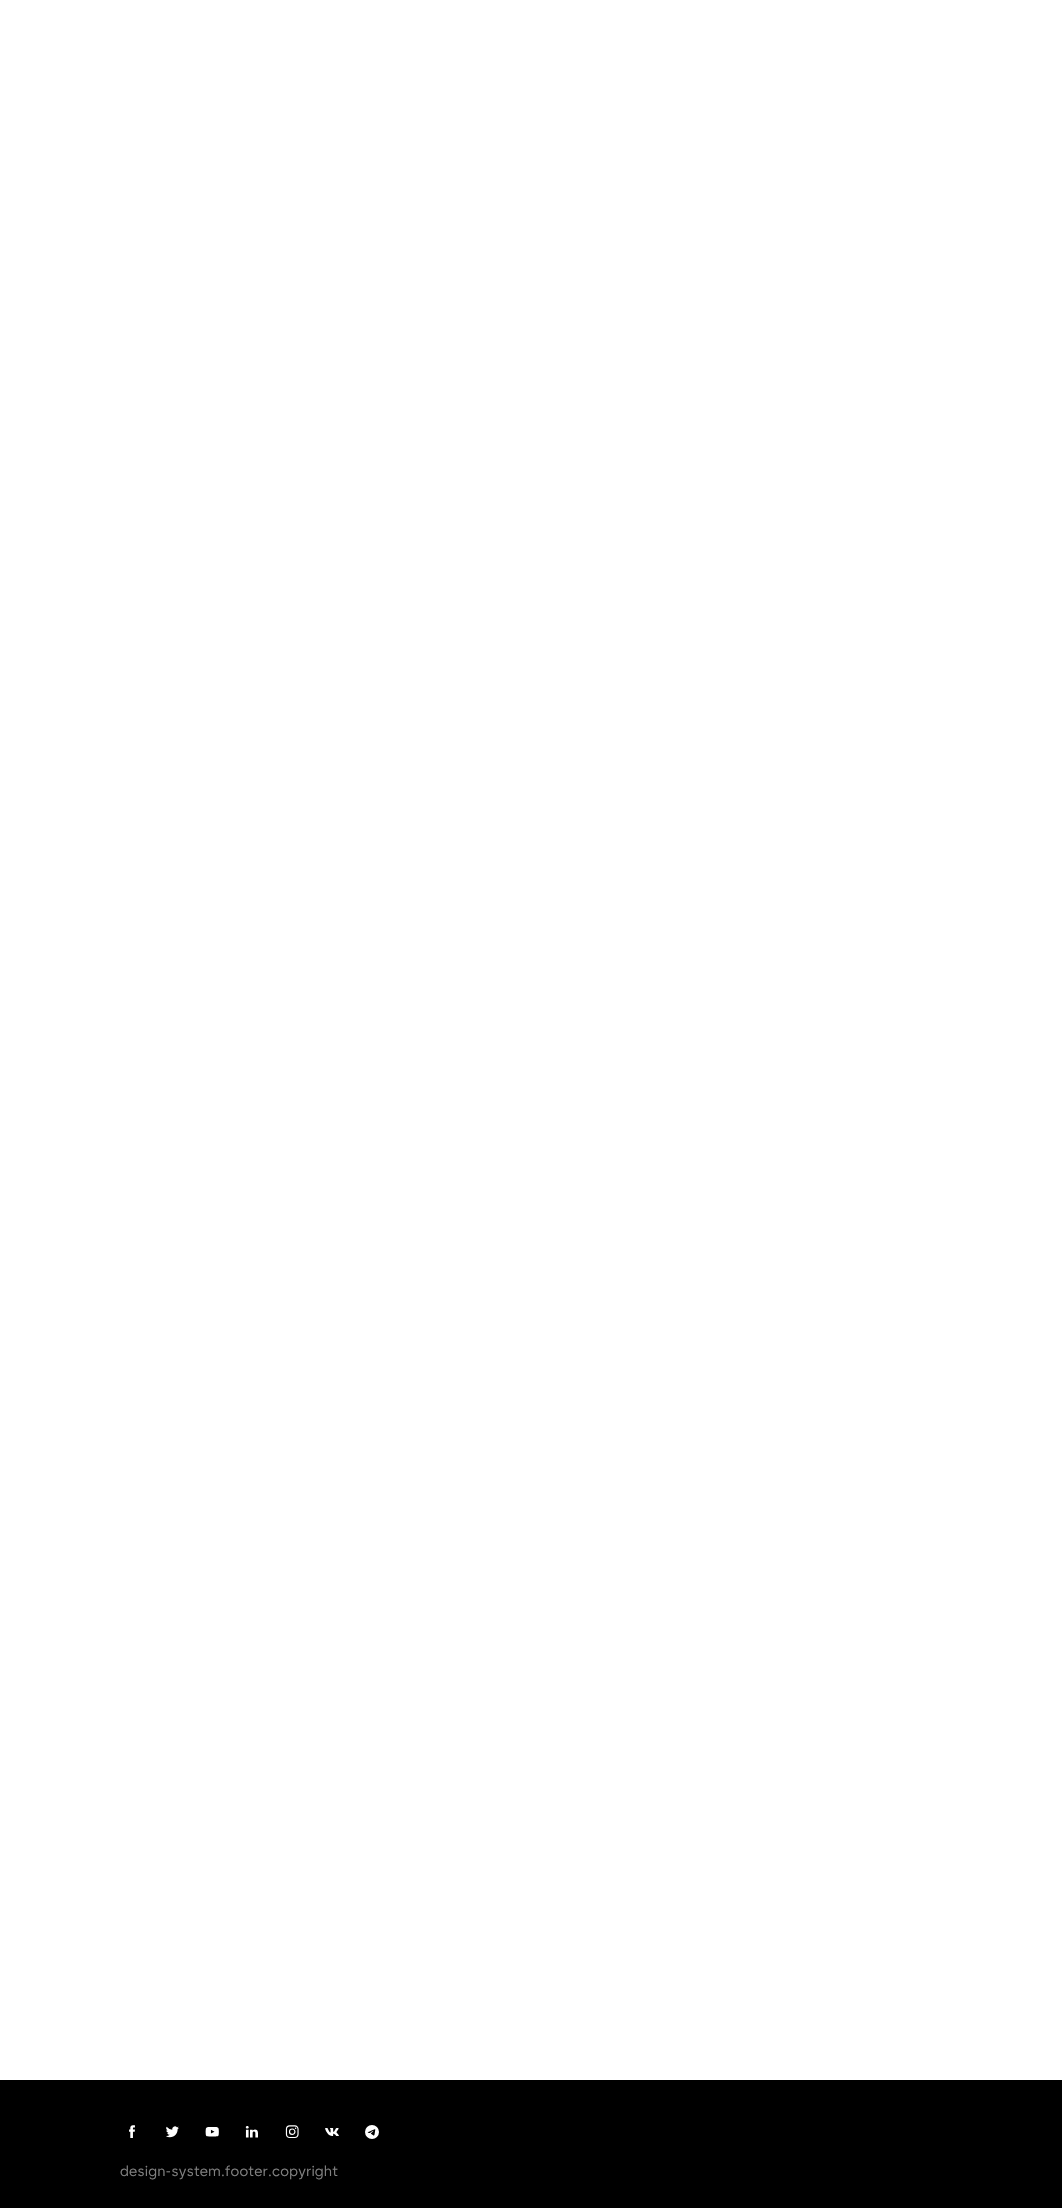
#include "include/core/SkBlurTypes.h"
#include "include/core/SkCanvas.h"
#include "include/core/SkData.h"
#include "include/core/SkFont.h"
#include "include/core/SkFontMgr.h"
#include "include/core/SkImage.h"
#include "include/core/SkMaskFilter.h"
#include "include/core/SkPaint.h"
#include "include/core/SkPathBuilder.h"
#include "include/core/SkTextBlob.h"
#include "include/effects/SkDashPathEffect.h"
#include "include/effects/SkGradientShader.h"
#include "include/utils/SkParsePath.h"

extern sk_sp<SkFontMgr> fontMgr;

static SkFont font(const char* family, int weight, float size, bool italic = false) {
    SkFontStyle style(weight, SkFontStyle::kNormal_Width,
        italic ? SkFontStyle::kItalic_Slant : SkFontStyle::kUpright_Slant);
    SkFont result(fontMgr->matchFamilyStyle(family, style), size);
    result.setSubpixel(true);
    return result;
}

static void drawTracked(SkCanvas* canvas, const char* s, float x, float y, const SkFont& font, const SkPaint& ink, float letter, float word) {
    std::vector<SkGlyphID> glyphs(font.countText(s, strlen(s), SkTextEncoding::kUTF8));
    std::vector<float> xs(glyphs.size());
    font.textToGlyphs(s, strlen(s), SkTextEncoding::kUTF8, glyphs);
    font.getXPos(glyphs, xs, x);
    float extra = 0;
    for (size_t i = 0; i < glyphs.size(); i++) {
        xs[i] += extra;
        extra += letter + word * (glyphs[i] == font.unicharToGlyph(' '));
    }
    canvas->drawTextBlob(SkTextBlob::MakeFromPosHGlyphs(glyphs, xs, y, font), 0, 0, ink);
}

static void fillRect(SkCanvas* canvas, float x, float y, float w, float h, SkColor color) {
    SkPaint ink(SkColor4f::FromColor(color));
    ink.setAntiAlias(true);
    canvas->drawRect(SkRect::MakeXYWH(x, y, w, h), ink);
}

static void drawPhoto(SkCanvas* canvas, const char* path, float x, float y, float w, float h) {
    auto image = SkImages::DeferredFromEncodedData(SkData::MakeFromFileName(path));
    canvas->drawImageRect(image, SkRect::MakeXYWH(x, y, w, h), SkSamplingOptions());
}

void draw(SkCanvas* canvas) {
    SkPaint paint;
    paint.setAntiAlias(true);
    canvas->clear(0xFFFFFFFF);
    fillRect(canvas, 0, 2080, 1062, 128, 0xFF000000);
    drawPhoto(canvas, "assets/img1.png", 129, 2125, 6, 13);
    drawPhoto(canvas, "assets/img2.png", 166, 2126, 13, 12);
    drawPhoto(canvas, "assets/img3.png", 205, 2127, 14, 10);
    drawPhoto(canvas, "assets/img4.png", 245, 2126, 13, 12);
    drawPhoto(canvas, "assets/img5.png", 285, 2125, 14, 13);
    drawPhoto(canvas, "assets/img6.png", 325, 2128, 14, 8);
    drawPhoto(canvas, "assets/img7.png", 365, 2125, 14, 14);
    SkFont font1 = font("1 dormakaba", 400, 14);
    paint.setColor(0xFF808080);
    drawTracked(canvas, "design-system.footer.copyright", 120, 2176, font1, paint, 0.15f, 0);
}
